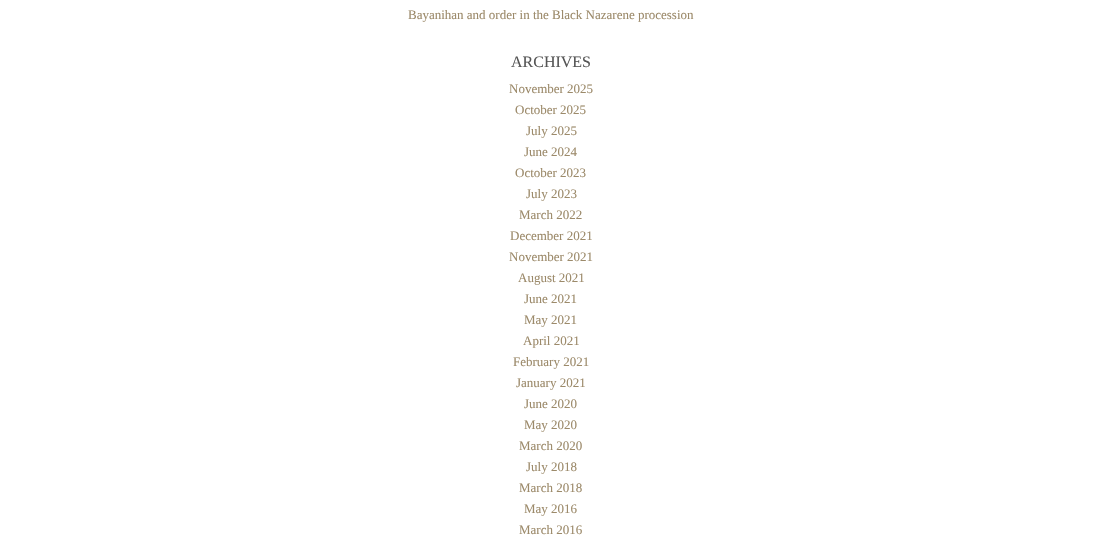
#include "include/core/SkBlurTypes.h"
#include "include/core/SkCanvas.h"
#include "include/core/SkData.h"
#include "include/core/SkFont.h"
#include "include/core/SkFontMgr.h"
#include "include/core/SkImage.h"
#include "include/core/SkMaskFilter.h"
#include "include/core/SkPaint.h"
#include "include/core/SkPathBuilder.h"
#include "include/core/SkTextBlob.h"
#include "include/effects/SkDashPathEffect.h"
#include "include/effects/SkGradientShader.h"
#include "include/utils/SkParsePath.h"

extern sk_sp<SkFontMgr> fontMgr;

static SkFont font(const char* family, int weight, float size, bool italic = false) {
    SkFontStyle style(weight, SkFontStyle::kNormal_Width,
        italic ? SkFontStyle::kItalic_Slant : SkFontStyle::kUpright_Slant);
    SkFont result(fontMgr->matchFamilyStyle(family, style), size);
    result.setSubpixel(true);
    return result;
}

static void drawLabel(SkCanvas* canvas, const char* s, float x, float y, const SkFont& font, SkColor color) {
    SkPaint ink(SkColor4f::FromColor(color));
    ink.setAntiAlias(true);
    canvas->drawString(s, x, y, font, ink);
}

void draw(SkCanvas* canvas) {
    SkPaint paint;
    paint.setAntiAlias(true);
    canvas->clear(0xFFFFFFFF);
    SkFont font1 = font("Liberation Serif", 400, 13);
    drawLabel(canvas, "Bayanihan and order in the Black Nazarene procession", 408, 19, font1, 0xFF9C8A6A);
    SkFont font2 = font("Liberation Serif", 400, 16);
    drawLabel(canvas, "ARCHIVES", 511, 67, font2, 0xFF555555);
    drawLabel(canvas, "November 2025", 509, 93, font1, 0xFF9C8A6A);
    drawLabel(canvas, "October 2025", 515, 114, font1, 0xFF9C8A6A);
    drawLabel(canvas, "July 2025", 526, 135, font1, 0xFF9C8A6A);
    drawLabel(canvas, "June 2024", 524, 156, font1, 0xFF9C8A6A);
    drawLabel(canvas, "October 2023", 515, 177, font1, 0xFF9C8A6A);
    drawLabel(canvas, "July 2023", 526, 198, font1, 0xFF9C8A6A);
    drawLabel(canvas, "March 2022", 519, 219, font1, 0xFF9C8A6A);
    drawLabel(canvas, "December 2021", 510, 240, font1, 0xFF9C8A6A);
    drawLabel(canvas, "November 2021", 509, 261, font1, 0xFF9C8A6A);
    drawLabel(canvas, "August 2021", 518, 282, font1, 0xFF9C8A6A);
    drawLabel(canvas, "June 2021", 524, 303, font1, 0xFF9C8A6A);
    drawLabel(canvas, "May 2021", 524, 324, font1, 0xFF9C8A6A);
    drawLabel(canvas, "April 2021", 523, 345, font1, 0xFF9C8A6A);
    drawLabel(canvas, "February 2021", 513, 366, font1, 0xFF9C8A6A);
    drawLabel(canvas, "January 2021", 516, 387, font1, 0xFF9C8A6A);
    drawLabel(canvas, "June 2020", 524, 408, font1, 0xFF9C8A6A);
    drawLabel(canvas, "May 2020", 524, 429, font1, 0xFF9C8A6A);
    drawLabel(canvas, "March 2020", 519, 450, font1, 0xFF9C8A6A);
    drawLabel(canvas, "July 2018", 526, 471, font1, 0xFF9C8A6A);
    drawLabel(canvas, "March 2018", 519, 492, font1, 0xFF9C8A6A);
    drawLabel(canvas, "May 2016", 524, 513, font1, 0xFF9C8A6A);
    drawLabel(canvas, "March 2016", 519, 534, font1, 0xFF9C8A6A);
}
